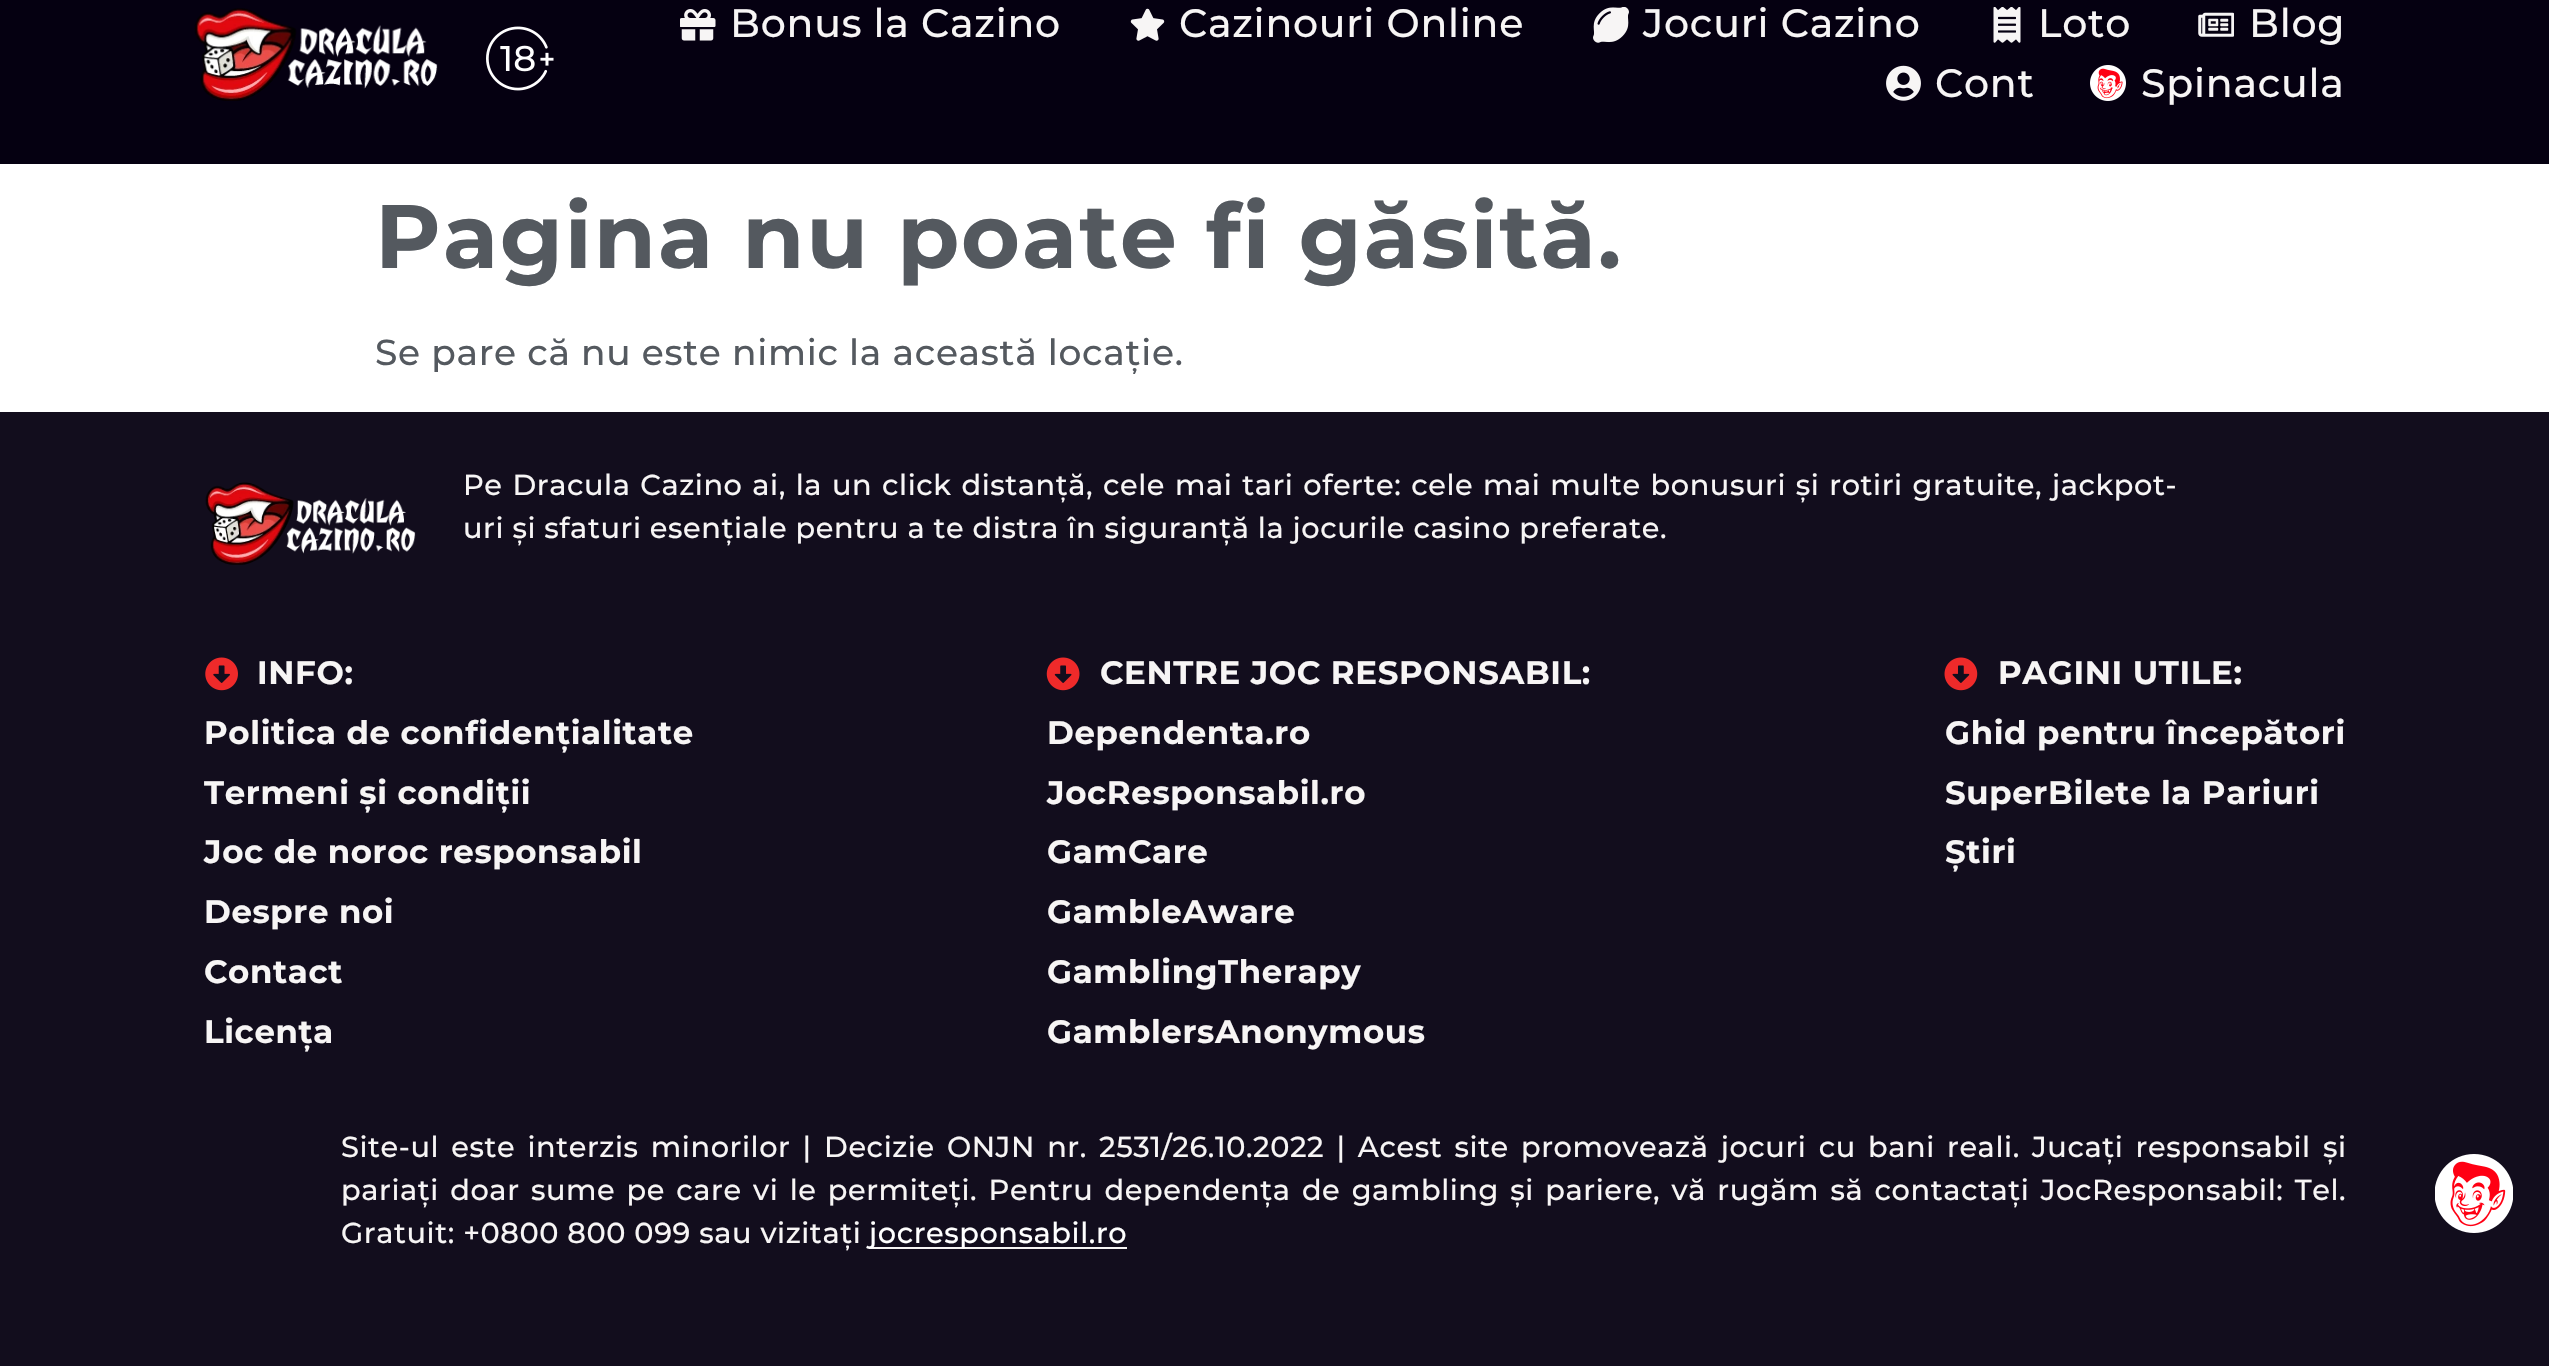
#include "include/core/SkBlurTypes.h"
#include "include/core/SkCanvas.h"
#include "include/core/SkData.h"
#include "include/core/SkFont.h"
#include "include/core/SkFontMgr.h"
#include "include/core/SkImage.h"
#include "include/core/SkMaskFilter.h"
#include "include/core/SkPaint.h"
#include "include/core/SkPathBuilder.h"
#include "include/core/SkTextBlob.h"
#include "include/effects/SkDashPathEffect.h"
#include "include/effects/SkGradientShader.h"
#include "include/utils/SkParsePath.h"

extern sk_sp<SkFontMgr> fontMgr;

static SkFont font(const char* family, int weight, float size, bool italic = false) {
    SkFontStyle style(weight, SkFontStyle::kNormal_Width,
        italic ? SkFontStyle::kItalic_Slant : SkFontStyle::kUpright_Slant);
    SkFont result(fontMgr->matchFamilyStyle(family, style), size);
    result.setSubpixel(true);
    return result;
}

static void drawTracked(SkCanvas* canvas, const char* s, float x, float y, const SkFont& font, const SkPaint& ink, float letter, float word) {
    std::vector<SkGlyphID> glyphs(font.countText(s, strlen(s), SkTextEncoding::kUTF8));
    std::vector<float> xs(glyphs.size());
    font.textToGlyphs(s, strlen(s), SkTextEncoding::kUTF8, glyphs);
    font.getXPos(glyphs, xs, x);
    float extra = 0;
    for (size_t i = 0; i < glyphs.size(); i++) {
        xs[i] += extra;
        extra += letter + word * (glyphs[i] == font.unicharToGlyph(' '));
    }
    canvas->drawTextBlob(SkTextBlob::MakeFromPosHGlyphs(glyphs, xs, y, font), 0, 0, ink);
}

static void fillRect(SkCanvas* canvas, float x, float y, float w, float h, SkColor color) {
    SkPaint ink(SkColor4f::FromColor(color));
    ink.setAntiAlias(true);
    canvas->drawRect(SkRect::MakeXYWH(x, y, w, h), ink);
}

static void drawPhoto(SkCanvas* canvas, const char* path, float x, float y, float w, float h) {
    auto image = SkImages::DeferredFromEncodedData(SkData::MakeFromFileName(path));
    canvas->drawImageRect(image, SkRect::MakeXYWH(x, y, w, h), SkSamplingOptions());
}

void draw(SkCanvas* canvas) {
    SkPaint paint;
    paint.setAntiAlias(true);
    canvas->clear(0xFFFFFFFF);
    fillRect(canvas, 0, 0, 2549, 164, 0xFF050011);
    drawPhoto(canvas, "assets/img1.png", 194, 8, 244, 93);
    drawPhoto(canvas, "assets/img2.png", 486, 26, 68, 65);
    drawPhoto(canvas, "assets/img3.png", 680, 9, 36, 32);
    SkFont font1 = font("Montserrat", 500, 39.5f);
    paint.setColor(0xFFF7F5F5);
    drawTracked(canvas, "Bonus la Cazino", 730, 37, font1, paint, 0.75f, 0);
    drawPhoto(canvas, "assets/img4.png", 1130, 8, 35, 33);
    drawTracked(canvas, "Cazinouri Online", 1179, 37, font1, paint, 0.75f, 0);
    drawPhoto(canvas, "assets/img5.png", 1593, 7, 36, 36);
    drawTracked(canvas, "Jocuri Cazino", 1643, 37, font1, paint, 0.75f, 0);
    drawPhoto(canvas, "assets/img6.png", 1993, 7, 28, 36);
    drawTracked(canvas, "Loto", 2038, 37, font1, paint, 0.75f, 0);
    drawPhoto(canvas, "assets/img7.png", 2198, 12, 36, 25);
    drawTracked(canvas, "Blog", 2249, 37, font1, paint, 0.75f, 0);
    drawPhoto(canvas, "assets/img8.png", 1886, 65, 35, 36);
    drawTracked(canvas, "Cont", 1935, 97, font1, paint, 0.75f, 0);
    drawPhoto(canvas, "assets/img9.png", 2090, 65, 36, 36);
    drawTracked(canvas, "Spinacula", 2141, 97, font1, paint, 0.75f, 0);
    SkFont font2 = font("Montserrat", 700, 90);
    paint.setColor(0xFF54595F);
    drawTracked(canvas, "Pagina nu poate fi găsită.", 375, 268, font2, paint, 1.8f, 0);
    SkFont font3 = font("Montserrat", 500, 36);
    drawTracked(canvas, "Se pare că nu este nimic la această locație.", 375, 365, font3, paint, 0.7f, 0);
    fillRect(canvas, 0, 412, 2549, 954, 0xFF120D1D);
    drawPhoto(canvas, "assets/img10.png", 205, 482, 211, 83);
    SkFont font4 = font("Montserrat", 500, 28.8f);
    paint.setColor(0xFFF7F5F5);
    drawTracked(canvas, "Pe Dracula Cazino ai, la un click distanță, cele mai tari oferte: cele mai multe bonusuri și rotiri gratuite, jackpot-", 463, 495, font4, paint, 0.58f, 1.5f);
    drawTracked(canvas, "uri și sfaturi esențiale pentru a te distra în siguranță la jocurile casino preferate.", 463, 538, font4, paint, 0.58f, 0);
    drawPhoto(canvas, "assets/img11.png", 205, 657, 33, 34);
    SkFont font5 = font("Montserrat", 700, 32.4f);
    drawTracked(canvas, "INFO:", 257, 684, font5, paint, 0.65f, 0);
    drawTracked(canvas, "Politica de confidențialitate", 204, 744, font5, paint, 0.65f, 0);
    drawTracked(canvas, "Termeni și condiții", 204, 804, font5, paint, 0.65f, 0);
    drawTracked(canvas, "Joc de noroc responsabil", 204, 863, font5, paint, 0.65f, 0);
    drawTracked(canvas, "Despre noi", 204, 923, font5, paint, 0.65f, 0);
    drawTracked(canvas, "Contact", 204, 983, font5, paint, 0.65f, 0);
    drawTracked(canvas, "Licența", 204, 1043, font5, paint, 0.65f, 0);
    drawPhoto(canvas, "assets/img12.png", 1046, 657, 34, 34);
    drawTracked(canvas, "CENTRE JOC RESPONSABIL:", 1100, 684, font5, paint, 0.65f, 0);
    drawTracked(canvas, "Dependenta.ro", 1047, 744, font5, paint, 0.65f, 0);
    drawTracked(canvas, "JocResponsabil.ro", 1047, 804, font5, paint, 0.65f, 0);
    drawTracked(canvas, "GamCare", 1047, 863, font5, paint, 0.65f, 0);
    drawTracked(canvas, "GambleAware", 1047, 923, font5, paint, 0.65f, 0);
    drawTracked(canvas, "GamblingTherapy", 1047, 983, font5, paint, 0.65f, 0);
    drawTracked(canvas, "GamblersAnonymous", 1047, 1043, font5, paint, 0.65f, 0);
    drawPhoto(canvas, "assets/img13.png", 1944, 657, 34, 34);
    drawTracked(canvas, "PAGINI UTILE:", 1998, 684, font5, paint, 0.65f, 0);
    drawTracked(canvas, "Ghid pentru începători", 1945, 744, font5, paint, 0.65f, 0);
    drawTracked(canvas, "SuperBilete la Pariuri", 1945, 804, font5, paint, 0.65f, 0);
    drawTracked(canvas, "Știri", 1945, 863, font5, paint, 0.65f, 0);
    drawTracked(canvas, "Site-ul este interzis minorilor | Decizie ONJN nr. 2531/26.10.2022 | Acest site promovează jocuri cu bani reali. Jucați responsabil și", 341, 1157, font4, paint, 0.58f, 3.9f);
    drawTracked(canvas, "pariați doar sume pe care vi le permiteți. Pentru dependența de gambling și pariere, vă rugăm să contactați JocResponsabil: Tel.", 341, 1200, font4, paint, 0.58f, 3);
    drawTracked(canvas, "Gratuit: +0800 800 099 sau vizitați", 341, 1243, font4, paint, 0.58f, 0);
    fillRect(canvas, 869, 1247, 258, 2, 0xFFF7F5F5);
    paint.setColor(0xFFFFFFFF);
    drawTracked(canvas, "jocresponsabil.ro", 869, 1243, font4, paint, 0.58f, 0);
    drawPhoto(canvas, "assets/img14.png", 2435, 1154, 78, 79);
}
